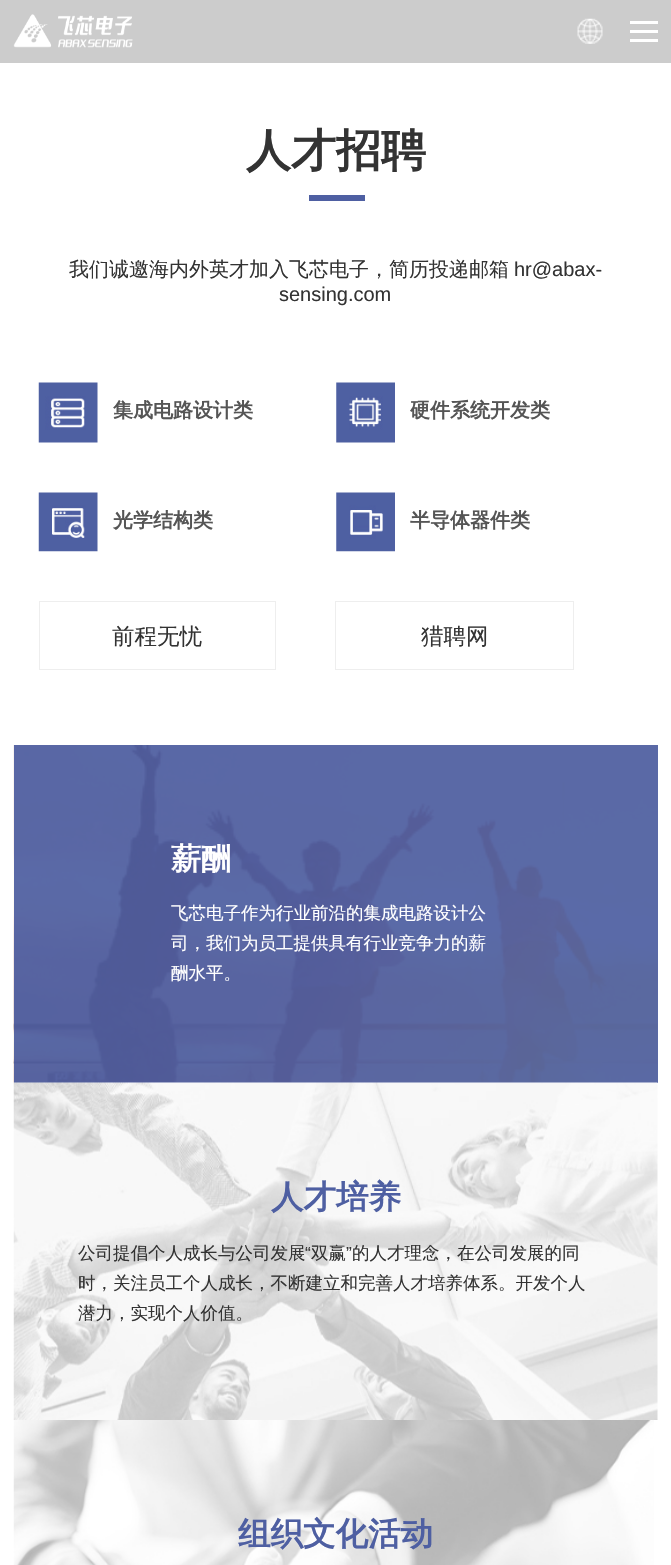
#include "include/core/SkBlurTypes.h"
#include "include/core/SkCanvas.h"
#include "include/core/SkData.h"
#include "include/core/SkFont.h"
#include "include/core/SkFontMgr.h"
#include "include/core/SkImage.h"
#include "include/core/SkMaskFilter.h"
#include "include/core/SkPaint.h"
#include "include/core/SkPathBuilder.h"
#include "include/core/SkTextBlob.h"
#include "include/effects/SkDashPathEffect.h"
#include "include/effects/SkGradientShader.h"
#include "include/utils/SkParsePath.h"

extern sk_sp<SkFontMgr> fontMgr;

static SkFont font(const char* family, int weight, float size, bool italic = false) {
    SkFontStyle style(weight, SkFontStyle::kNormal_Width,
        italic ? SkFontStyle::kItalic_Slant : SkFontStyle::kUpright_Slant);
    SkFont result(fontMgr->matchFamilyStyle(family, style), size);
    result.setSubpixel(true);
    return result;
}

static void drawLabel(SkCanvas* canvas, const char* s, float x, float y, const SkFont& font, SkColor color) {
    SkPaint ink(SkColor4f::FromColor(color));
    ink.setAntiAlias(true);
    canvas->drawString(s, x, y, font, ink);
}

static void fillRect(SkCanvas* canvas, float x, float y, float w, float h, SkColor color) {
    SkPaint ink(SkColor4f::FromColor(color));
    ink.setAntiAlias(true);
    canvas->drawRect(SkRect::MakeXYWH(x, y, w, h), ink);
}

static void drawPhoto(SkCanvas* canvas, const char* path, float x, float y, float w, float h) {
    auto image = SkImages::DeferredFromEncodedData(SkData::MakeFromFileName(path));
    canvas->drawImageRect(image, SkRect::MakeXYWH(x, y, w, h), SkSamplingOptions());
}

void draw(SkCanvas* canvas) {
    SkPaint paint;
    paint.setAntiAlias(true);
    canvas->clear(0xFFFFFFFF);
    fillRect(canvas, 14, 745, 644, 338, 0xFF5A6AA9);
    fillRect(canvas, 0, 0, 671, 63, 0xFFCCCCCC);
    drawPhoto(canvas, "assets/img1.png", 13, 14, 120, 34);
    drawPhoto(canvas, "assets/img2.png", 577, 18, 26, 26);
    fillRect(canvas, 630, 30, 28, 3, 0xFFFFFFFF);
    fillRect(canvas, 630, 21, 28, 3, 0xFFFFFFFF);
    fillRect(canvas, 630, 39, 28, 3, 0xFFFFFFFF);
    SkFont font1 = font("WenQuanYi Zen Hei", 700, 45);
    drawLabel(canvas, "人才招聘", 246, 166, font1, 0xFF333333);
    fillRect(canvas, 309, 195, 56, 6, 0xFF4E5FA2);
    SkFont font2 = font("WenQuanYi Zen Hei", 500, 20);
    drawLabel(canvas, "我们诚邀海内外英才加入飞芯电子，简历投递邮箱", 69, 276, font2, 0xFF333333);
    SkFont font3 = font("Liberation Sans", 400, 20);
    drawLabel(canvas, "hr@abax-", 514, 276, font3, 0xFF333333);
    drawLabel(canvas, "sensing.com", 279, 301, font3, 0xFF333333);
    drawPhoto(canvas, "assets/img3.png", 38, 382, 60, 61);
    SkFont font4 = font("WenQuanYi Zen Hei", 700, 20);
    drawLabel(canvas, "集成电路设计类", 113, 417, font4, 0xFF555555);
    drawPhoto(canvas, "assets/img4.png", 336, 382, 59, 61);
    drawLabel(canvas, "硬件系统开发类", 410, 417, font4, 0xFF555555);
    drawPhoto(canvas, "assets/img5.png", 38, 492, 60, 60);
    drawLabel(canvas, "光学结构类", 113, 527, font4, 0xFF555555);
    drawPhoto(canvas, "assets/img6.png", 336, 492, 59, 60);
    drawLabel(canvas, "半导体器件类", 410, 527, font4, 0xFF555555);
    paint.setStroke(true);
    paint.setStrokeWidth(1);
    paint.setColor(0xFFEEEEEE);
    canvas->drawRect(SkRect::MakeXYWH(39.5f, 601.5f, 236, 68), paint);
    SkFont font5 = font("WenQuanYi Zen Hei", 500, 22.5f);
    drawLabel(canvas, "前程无忧", 112, 644, font5, 0xFF333333);
    canvas->drawRect(SkRect::MakeXYWH(335.5f, 601.5f, 238, 68), paint);
    drawLabel(canvas, "猎聘网", 421, 644, font5, 0xFF333333);
    drawPhoto(canvas, "assets/img7.png", 13, 745, 645, 338);
    SkFont font6 = font("WenQuanYi Zen Hei", 700, 30);
    drawLabel(canvas, "薪酬", 171, 869, font6, 0xFFFFFFFF);
    SkFont font7 = font("WenQuanYi Zen Hei", 500, 17.5f);
    drawLabel(canvas, "飞芯电子作为行业前沿的集成电路设计公", 171, 919, font7, 0xFFFFFFFF);
    drawLabel(canvas, "司，我们为员工提供具有行业竞争力的薪", 171, 949, font7, 0xFFFFFFFF);
    drawLabel(canvas, "酬水平。", 171, 979, font7, 0xFFFFFFFF);
    drawPhoto(canvas, "assets/img8.png", 13, 1082, 645, 338);
    SkFont font8 = font("WenQuanYi Zen Hei", 700, 32.5f);
    drawLabel(canvas, "人才培养", 271, 1208, font8, 0xFF4E5FA2);
    drawLabel(canvas, "公司提倡个人成长与公司发展", 78, 1259, font7, 0xFF333333);
    SkFont font9 = font("Liberation Sans", 400, 17.5f);
    drawLabel(canvas, "“", 305, 1259, font9, 0xFF333333);
    drawLabel(canvas, "双赢", 311, 1259, font7, 0xFF333333);
    drawLabel(canvas, "”", 346, 1259, font9, 0xFF333333);
    drawLabel(canvas, "的人才理念，在公司发展的同", 352, 1259, font7, 0xFF333333);
    drawLabel(canvas, "时，关注员工个人成长，不断建立和完善人才培养体系。开发个人", 78, 1289, font7, 0xFF333333);
    drawLabel(canvas, "潜力，实现个人价值。", 78, 1319, font7, 0xFF333333);
    drawPhoto(canvas, "assets/img9.png", 13, 1420, 641, 145);
    drawLabel(canvas, "组织文化活动", 238, 1545, font8, 0xFF4E5FA2);
}
